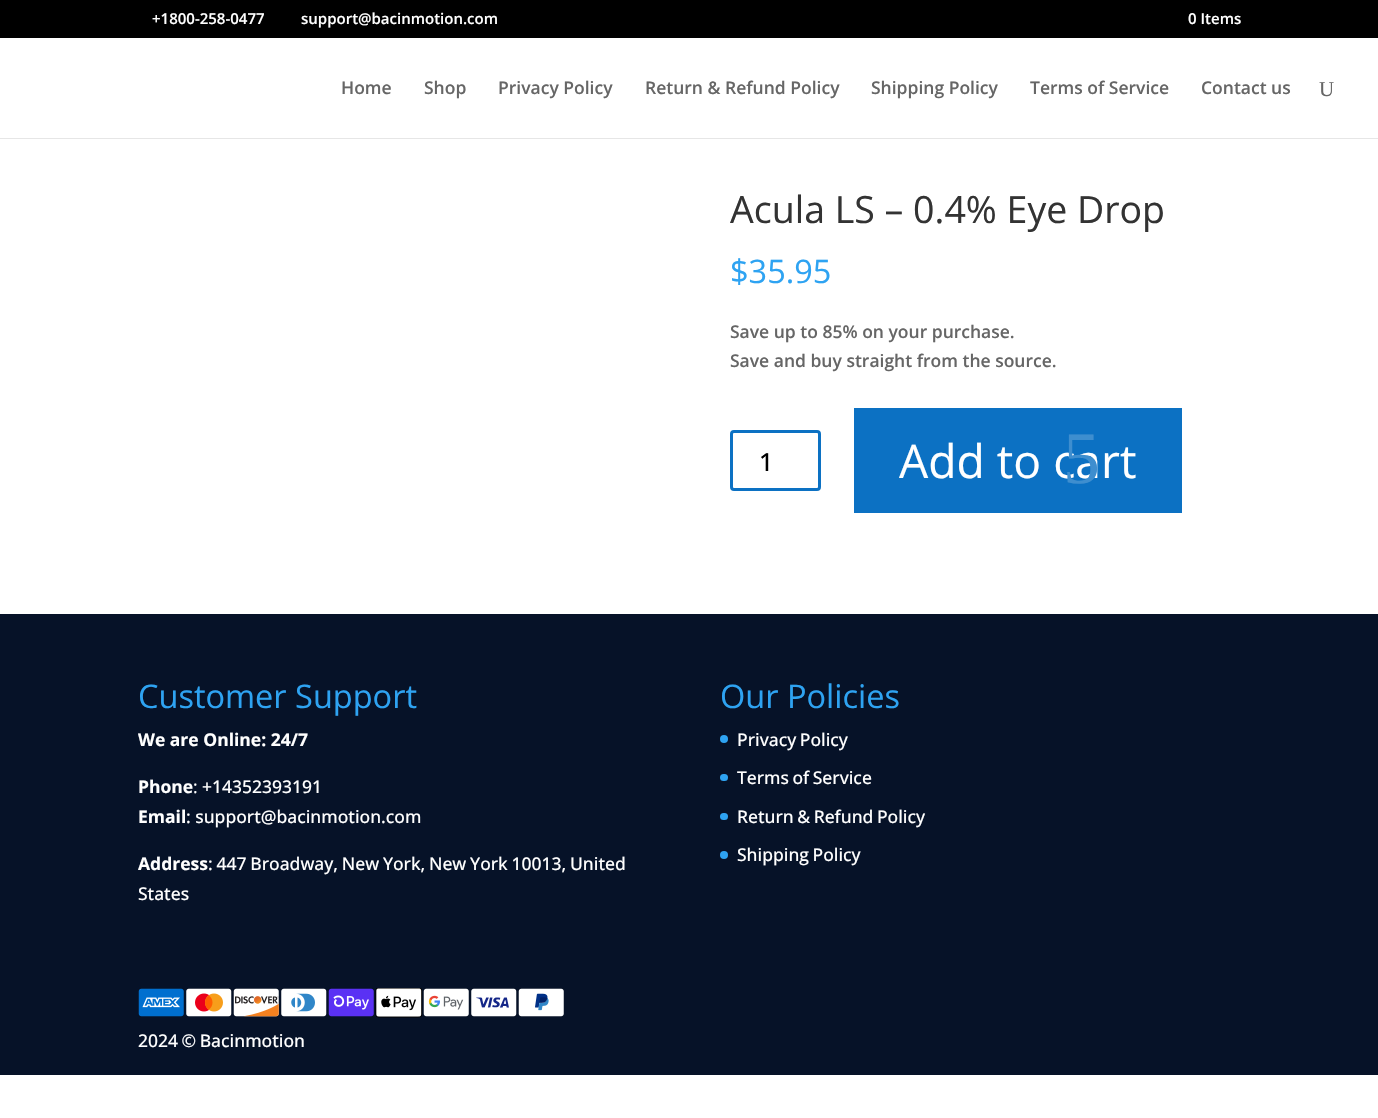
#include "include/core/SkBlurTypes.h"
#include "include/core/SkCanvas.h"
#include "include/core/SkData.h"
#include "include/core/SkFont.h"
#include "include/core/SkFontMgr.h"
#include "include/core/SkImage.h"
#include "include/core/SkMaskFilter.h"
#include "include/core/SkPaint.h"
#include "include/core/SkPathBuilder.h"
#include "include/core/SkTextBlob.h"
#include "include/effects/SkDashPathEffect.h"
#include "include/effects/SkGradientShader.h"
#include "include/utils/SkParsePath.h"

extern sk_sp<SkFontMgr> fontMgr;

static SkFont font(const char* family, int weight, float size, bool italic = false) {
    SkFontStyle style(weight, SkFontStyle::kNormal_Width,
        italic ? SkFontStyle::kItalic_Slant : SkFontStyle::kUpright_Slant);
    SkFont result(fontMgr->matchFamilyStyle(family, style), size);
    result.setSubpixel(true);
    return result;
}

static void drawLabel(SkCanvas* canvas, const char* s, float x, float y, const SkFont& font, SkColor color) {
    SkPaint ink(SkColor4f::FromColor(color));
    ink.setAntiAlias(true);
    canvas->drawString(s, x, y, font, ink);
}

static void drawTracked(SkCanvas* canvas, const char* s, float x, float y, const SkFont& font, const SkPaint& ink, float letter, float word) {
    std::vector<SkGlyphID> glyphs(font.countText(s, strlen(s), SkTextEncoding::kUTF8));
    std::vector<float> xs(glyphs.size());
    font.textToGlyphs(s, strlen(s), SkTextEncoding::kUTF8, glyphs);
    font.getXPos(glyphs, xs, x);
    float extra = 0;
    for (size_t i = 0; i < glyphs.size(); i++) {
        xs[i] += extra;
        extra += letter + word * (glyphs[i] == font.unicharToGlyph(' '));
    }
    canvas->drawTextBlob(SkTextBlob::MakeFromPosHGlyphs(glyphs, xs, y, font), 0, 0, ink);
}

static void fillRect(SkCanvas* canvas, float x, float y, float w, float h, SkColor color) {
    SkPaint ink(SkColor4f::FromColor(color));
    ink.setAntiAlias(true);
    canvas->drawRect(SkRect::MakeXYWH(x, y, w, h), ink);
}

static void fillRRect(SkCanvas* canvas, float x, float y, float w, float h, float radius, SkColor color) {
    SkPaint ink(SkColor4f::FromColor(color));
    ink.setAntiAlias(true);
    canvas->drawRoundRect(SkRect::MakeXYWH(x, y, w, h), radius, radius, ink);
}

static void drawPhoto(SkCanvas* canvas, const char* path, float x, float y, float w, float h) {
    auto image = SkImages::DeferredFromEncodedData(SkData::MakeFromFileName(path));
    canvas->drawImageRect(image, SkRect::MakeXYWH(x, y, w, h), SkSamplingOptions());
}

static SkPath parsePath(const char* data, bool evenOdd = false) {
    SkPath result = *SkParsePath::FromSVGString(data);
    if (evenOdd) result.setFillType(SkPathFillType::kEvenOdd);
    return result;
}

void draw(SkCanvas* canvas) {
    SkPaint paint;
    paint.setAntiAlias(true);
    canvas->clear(0xFFFFFFFF);
    fillRect(canvas, 0, 0, 1378, 38, 0xFF000000);
    SkFont font1 = font("Open Sans", 600, 15);
    drawLabel(canvas, "+1800-258-0477", 152, 24, font1, 0xFFFFFFFF);
    drawLabel(canvas, "support@bacinmotion.com", 301, 24, font1, 0xFFFFFFFF);
    drawLabel(canvas, "0 Items", 1188, 24, font1, 0xFFFFFFFF);
    paint.setColor(0xFFE6E6E6);
    canvas->drawPath(parsePath("M0 138V139H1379V39V138Z"), paint);
    SkFont font2 = font("Open Sans", 600, 17.5f);
    drawLabel(canvas, "Home", 341, 94, font2, 0xFF666666);
    drawLabel(canvas, "Shop", 424, 94, font2, 0xFF666666);
    drawLabel(canvas, "Privacy Policy", 498, 94, font2, 0xFF666666);
    drawLabel(canvas, "Return & Refund Policy", 645, 94, font2, 0xFF666666);
    drawLabel(canvas, "Shipping Policy", 871, 94, font2, 0xFF666666);
    drawLabel(canvas, "Terms of Service", 1030, 94, font2, 0xFF666666);
    drawLabel(canvas, "Contact us", 1201, 94, font2, 0xFF666666);
    SkFont font3 = font("Liberation Serif", 400, 21);
    drawLabel(canvas, "U", 1319, 96, font3, 0xFF666666);
    SkFont font4 = font("Open Sans", 400, 37.5f);
    drawLabel(canvas, "Acula LS – 0.4% Eye Drop", 730, 223, font4, 0xFF333333);
    SkFont font5 = font("Open Sans", 400, 32.5f);
    drawLabel(canvas, "$35.95", 730, 283, font5, 0xFF2EA3F2);
    drawLabel(canvas, "Save up to 85% on your purchase.", 730, 338, font2, 0xFF666666);
    drawLabel(canvas, "Save and buy straight from the source.", 730, 367, font2, 0xFF666666);
    paint.setStroke(true);
    paint.setStrokeWidth(3);
    paint.setColor(0xFF0C71C3);
    canvas->drawRoundRect(SkRect::MakeXYWH(731.5f, 431.5f, 88, 58), 2.5f, 2.5f, paint);
    SkFont font6 = font("Open Sans", 500, 25);
    drawLabel(canvas, "1", 759, 471, font6, 0xFF000000);
    paint.setStroke(false);
    canvas->drawRoundRect(SkRect::MakeXYWH(852.5f, 406.5f, 331, 108), 1, 1, paint);
    paint.setStroke(true);
    paint.setColor(0xFFFFFFFF);
    canvas->drawRoundRect(SkRect::MakeXYWH(852.5f, 406.5f, 331, 108), 1, 1, paint);
    SkFont font7 = font("Open Sans", 400, 46.25f);
    drawLabel(canvas, "Add to cart", 899, 478, font7, 0xFFFFFFFF);
    SkFont font8 = font("Liberation Serif", 400, 74);
    drawLabel(canvas, "5", 1063, 483, font8, 0xFF3E8ECF);
    fillRect(canvas, 0, 614, 1378, 461, 0xFF061228);
    drawLabel(canvas, "Customer Support", 138, 708, font5, 0xFF2EA3F2);
    SkFont font9 = font("Open Sans", 700, 17.5f);
    drawLabel(canvas, "We are Online: 24/7", 138, 746, font9, 0xFFFFFFFF);
    drawLabel(canvas, "Phone", 138, 793, font9, 0xFFFFFFFF);
    SkFont font10 = font("Open Sans", 400, 17.5f);
    drawLabel(canvas, ":", 193, 793, font10, 0xFFFFFFFF);
    SkFont font11 = font("Open Sans", 500, 17.5f);
    drawLabel(canvas, "+14352393191", 202, 793, font11, 0xFFFFFFFF);
    drawLabel(canvas, "Email", 138, 823, font9, 0xFFFFFFFF);
    drawLabel(canvas, ": support@bacinmotion.com", 186, 823, font11, 0xFFFFFFFF);
    drawLabel(canvas, "Address", 138, 870, font9, 0xFFFFFFFF);
    paint.setStroke(false);
    drawTracked(canvas, ": 447 Broadway, New York, New York 10013, United", 208, 870, font11, paint, 0, -0.75f);
    drawLabel(canvas, "States", 138, 900, font11, 0xFFFFFFFF);
    drawLabel(canvas, "Our Policies", 720, 708, font5, 0xFF2EA3F2);
    paint.setColor(0xFF2EA3F2);
    canvas->drawCircle(724, 739, 4, paint);
    paint.setColor(0xFFFFFFFF);
    drawTracked(canvas, "Privacy Policy", 737, 746, font11, paint, 0, -1);
    fillRRect(canvas, 720, 774, 8, 7, 3.5f, 0xFF2EA3F2);
    drawTracked(canvas, "Terms of Service", 737, 784, font11, paint, 0, -1);
    fillRRect(canvas, 720, 813, 8, 7, 3.5f, 0xFF2EA3F2);
    drawTracked(canvas, "Return & Refund Policy", 737, 823, font11, paint, 0, -1);
    paint.setColor(0xFF2EA3F2);
    canvas->drawCircle(724, 855, 4, paint);
    paint.setColor(0xFFFFFFFF);
    drawTracked(canvas, "Shipping Policy", 737, 861, font11, paint, 0, -1);
    drawPhoto(canvas, "assets/img1.png", 138, 988, 46, 29);
    drawPhoto(canvas, "assets/img2.png", 186, 988, 46, 29);
    drawPhoto(canvas, "assets/img3.png", 233, 988, 46, 29);
    drawPhoto(canvas, "assets/img4.png", 281, 988, 46, 29);
    drawPhoto(canvas, "assets/img5.png", 328, 988, 46, 29);
    drawPhoto(canvas, "assets/img6.png", 375, 988, 48, 30);
    drawPhoto(canvas, "assets/img7.png", 423, 988, 46, 29);
    drawPhoto(canvas, "assets/img8.png", 471, 988, 46, 29);
    drawPhoto(canvas, "assets/img9.png", 518, 988, 46, 29);
    drawTracked(canvas, "2024 © Bacinmotion", 138, 1047, font11, paint, 0, -1);
}
